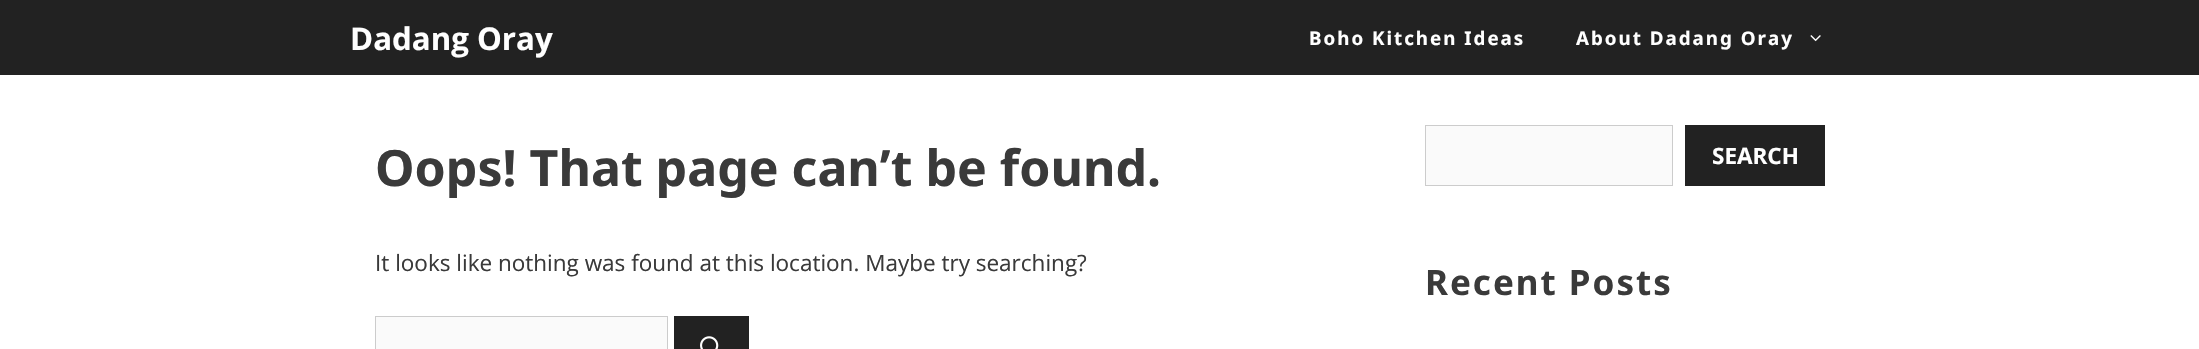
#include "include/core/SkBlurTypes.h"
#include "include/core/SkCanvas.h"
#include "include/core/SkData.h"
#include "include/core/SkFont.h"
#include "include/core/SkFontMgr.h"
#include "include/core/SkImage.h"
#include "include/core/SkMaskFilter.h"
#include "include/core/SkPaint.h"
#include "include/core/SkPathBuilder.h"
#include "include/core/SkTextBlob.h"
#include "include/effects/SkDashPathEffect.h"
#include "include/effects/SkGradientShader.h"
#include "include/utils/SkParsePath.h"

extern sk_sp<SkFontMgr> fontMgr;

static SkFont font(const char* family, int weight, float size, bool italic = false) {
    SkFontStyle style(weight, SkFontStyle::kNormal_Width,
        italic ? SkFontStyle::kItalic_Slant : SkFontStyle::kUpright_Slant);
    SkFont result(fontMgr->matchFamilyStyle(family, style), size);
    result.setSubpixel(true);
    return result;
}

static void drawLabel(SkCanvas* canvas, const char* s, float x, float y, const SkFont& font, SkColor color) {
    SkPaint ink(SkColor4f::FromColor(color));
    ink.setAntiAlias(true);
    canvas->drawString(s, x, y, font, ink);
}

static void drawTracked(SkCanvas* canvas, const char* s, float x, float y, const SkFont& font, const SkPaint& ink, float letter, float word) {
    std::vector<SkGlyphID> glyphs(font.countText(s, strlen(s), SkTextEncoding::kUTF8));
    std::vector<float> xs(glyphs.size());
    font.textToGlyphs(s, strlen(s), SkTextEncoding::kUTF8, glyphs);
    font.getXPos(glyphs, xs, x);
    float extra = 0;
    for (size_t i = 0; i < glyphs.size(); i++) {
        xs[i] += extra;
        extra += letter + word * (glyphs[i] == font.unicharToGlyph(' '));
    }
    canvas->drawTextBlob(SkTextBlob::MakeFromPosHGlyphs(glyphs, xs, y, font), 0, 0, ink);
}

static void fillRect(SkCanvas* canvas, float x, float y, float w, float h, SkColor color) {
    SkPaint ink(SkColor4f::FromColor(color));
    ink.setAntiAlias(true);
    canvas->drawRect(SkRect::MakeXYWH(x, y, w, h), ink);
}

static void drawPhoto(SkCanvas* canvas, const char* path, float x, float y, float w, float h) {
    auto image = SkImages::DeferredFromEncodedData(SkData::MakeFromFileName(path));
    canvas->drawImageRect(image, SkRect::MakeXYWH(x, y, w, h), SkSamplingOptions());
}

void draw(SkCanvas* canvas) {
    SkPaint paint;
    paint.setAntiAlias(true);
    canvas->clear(0xFFFFFFFF);
    fillRect(canvas, 0, 0, 2199, 75, 0xFF222222);
    SkFont font1 = font("Open Sans", 700, 31.25f);
    drawLabel(canvas, "Dadang Oray", 350, 50, font1, 0xFFFFFFFF);
    SkFont font2 = font("Noto Sans", 700, 18.75f);
    paint.setColor(0xFFFFFFFF);
    drawTracked(canvas, "Boho Kitchen Ideas", 1309, 45, font2, paint, 2, 0);
    drawTracked(canvas, "About Dadang Oray", 1576, 45, font2, paint, 2, 0);
    drawPhoto(canvas, "assets/img1.png", 1810, 35, 11, 7);
    SkFont font3 = font("Noto Sans", 700, 50);
    drawLabel(canvas, "Oops! That page can’t be found.", 375, 186, font3, 0xFF3A3A3A);
    SkFont font4 = font("Open Sans", 400, 22.5f);
    drawLabel(canvas, "It looks like nothing was found at this location. Maybe try searching?", 375, 271, font4, 0xFF3A3A3A);
    paint.setColor(0xFFFAFAFA);
    canvas->drawRect(SkRect::MakeXYWH(375.5f, 316.5f, 292, 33), paint);
    paint.setStroke(true);
    paint.setStrokeWidth(1);
    paint.setColor(0xFFCCCCCC);
    canvas->drawRect(SkRect::MakeXYWH(375.5f, 316.5f, 292, 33), paint);
    fillRect(canvas, 674, 316, 75, 33, 0xFF222222);
    drawPhoto(canvas, "assets/img2.png", 700, 336, 19, 13);
    paint.setStroke(false);
    paint.setColor(0xFFFAFAFA);
    canvas->drawRect(SkRect::MakeXYWH(1425.5f, 125.5f, 247, 60), paint);
    paint.setStroke(true);
    paint.setColor(0xFFCCCCCC);
    canvas->drawRect(SkRect::MakeXYWH(1425.5f, 125.5f, 247, 60), paint);
    fillRect(canvas, 1685, 125, 140, 61, 0xFF222222);
    SkFont font5 = font("Open Sans", 700, 22.5f);
    drawLabel(canvas, "SEARCH", 1712, 164, font5, 0xFFFFFFFF);
    SkFont font6 = font("Noto Sans", 700, 35);
    paint.setStroke(false);
    paint.setColor(0xFF3A3A3A);
    drawTracked(canvas, "Recent Posts", 1425, 295, font6, paint, 2, 0);
}
